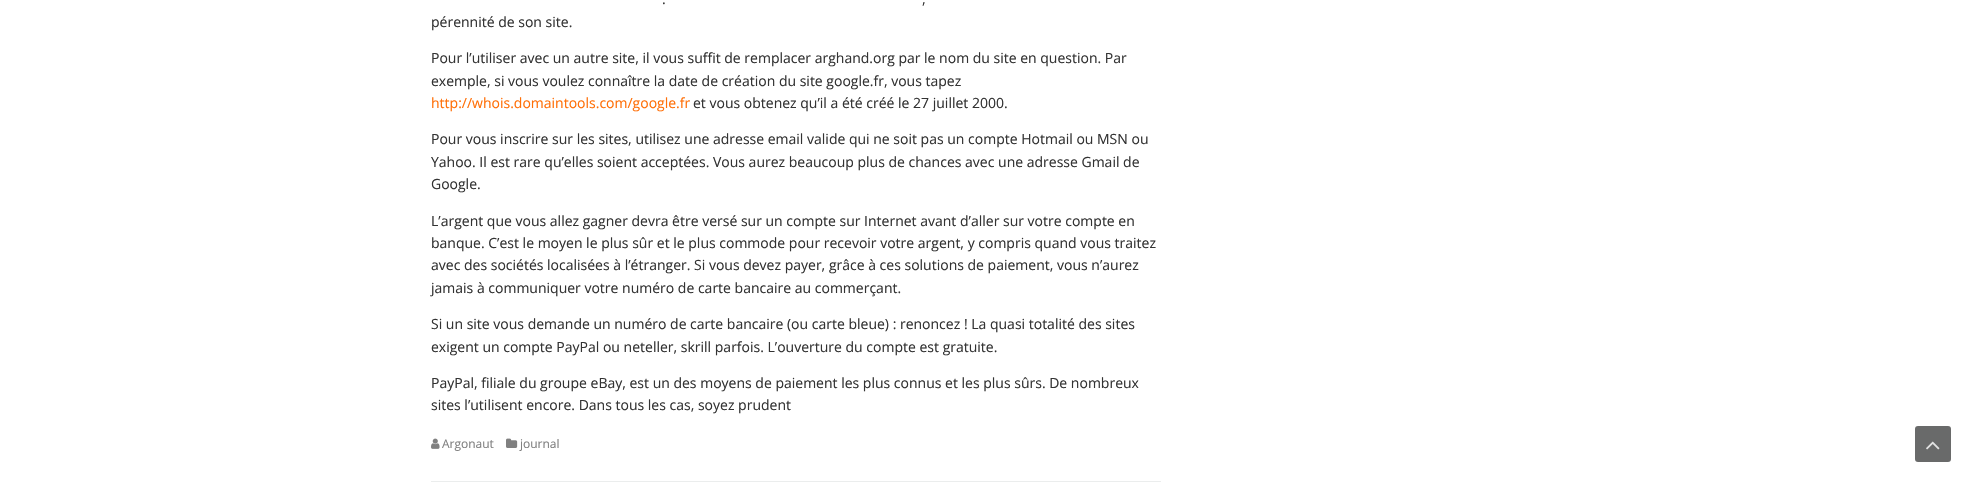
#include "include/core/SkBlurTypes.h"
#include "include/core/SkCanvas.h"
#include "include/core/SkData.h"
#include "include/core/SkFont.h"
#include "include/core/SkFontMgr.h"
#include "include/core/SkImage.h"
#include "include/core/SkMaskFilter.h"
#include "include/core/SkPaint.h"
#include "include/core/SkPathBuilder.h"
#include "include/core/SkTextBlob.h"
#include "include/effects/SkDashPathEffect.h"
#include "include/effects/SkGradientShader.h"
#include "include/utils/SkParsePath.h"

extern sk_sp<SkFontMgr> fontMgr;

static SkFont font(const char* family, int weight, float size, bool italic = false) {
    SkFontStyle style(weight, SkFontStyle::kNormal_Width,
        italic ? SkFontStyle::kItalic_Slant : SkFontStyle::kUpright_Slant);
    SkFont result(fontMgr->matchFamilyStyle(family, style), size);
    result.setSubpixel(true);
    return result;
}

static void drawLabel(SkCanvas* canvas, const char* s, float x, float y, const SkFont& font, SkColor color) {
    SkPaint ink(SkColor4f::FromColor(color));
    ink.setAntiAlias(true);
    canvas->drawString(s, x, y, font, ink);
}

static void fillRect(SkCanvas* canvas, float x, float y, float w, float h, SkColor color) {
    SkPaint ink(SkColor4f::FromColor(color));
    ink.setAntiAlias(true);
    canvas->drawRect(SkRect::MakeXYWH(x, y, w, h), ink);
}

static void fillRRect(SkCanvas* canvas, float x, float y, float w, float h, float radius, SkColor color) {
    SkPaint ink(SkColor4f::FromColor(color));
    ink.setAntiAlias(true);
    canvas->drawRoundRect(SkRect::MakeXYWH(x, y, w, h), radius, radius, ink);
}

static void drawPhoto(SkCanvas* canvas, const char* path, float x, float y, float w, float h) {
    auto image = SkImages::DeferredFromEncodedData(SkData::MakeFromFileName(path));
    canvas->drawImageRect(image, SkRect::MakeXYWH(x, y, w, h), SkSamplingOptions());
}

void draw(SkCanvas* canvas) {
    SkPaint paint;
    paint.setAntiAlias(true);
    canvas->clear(0xFFFFFFFF);
    fillRect(canvas, 431, 481, 730, 1, 0xFFEBEDED);
    SkFont font1 = font("Open Sans", 400, 14);
    drawLabel(canvas, ".", 662, 4, font1, 0xFF333333);
    drawLabel(canvas, ",", 922, 4, font1, 0xFF333333);
    drawLabel(canvas, "pérennité de son site.", 431, 27, font1, 0xFF333333);
    drawLabel(canvas, "Pour l’utiliser avec un autre site, il vous suffit de remplacer arghand.org par le nom du site en question. Par", 431, 63, font1, 0xFF333333);
    drawLabel(canvas, "exemple, si vous voulez connaître la date de création du site google.fr, vous tapez", 431, 86, font1, 0xFF333333);
    drawLabel(canvas, "http://whois.domaintools.com/google.fr", 431, 108, font1, 0xFFFF6F07);
    drawLabel(canvas, "et vous obtenez qu’il a été créé le 27 juillet 2000.", 693, 108, font1, 0xFF333333);
    drawLabel(canvas, "Pour vous inscrire sur les sites, utilisez une adresse email valide qui ne soit pas un compte Hotmail ou MSN ou", 431, 144, font1, 0xFF333333);
    drawLabel(canvas, "Yahoo. Il est rare qu’elles soient acceptées. Vous aurez beaucoup plus de chances avec une adresse Gmail de", 431, 167, font1, 0xFF333333);
    drawLabel(canvas, "Google.", 431, 189, font1, 0xFF333333);
    drawLabel(canvas, "L’argent que vous allez gagner devra être versé sur un compte sur Internet avant d’aller sur votre compte en", 431, 226, font1, 0xFF333333);
    drawLabel(canvas, "banque. C’est le moyen le plus sûr et le plus commode pour recevoir votre argent, y compris quand vous traitez", 431, 248, font1, 0xFF333333);
    drawLabel(canvas, "avec des sociétés localisées à l’étranger. Si vous devez payer, grâce à ces solutions de paiement, vous n’aurez", 431, 270, font1, 0xFF333333);
    drawLabel(canvas, "jamais à communiquer votre numéro de carte bancaire au commerçant.", 431, 293, font1, 0xFF333333);
    drawLabel(canvas, "Si un site vous demande un numéro de carte bancaire (ou carte bleue) : renoncez ! La quasi totalité des sites", 431, 329, font1, 0xFF333333);
    drawLabel(canvas, "exigent un compte PayPal ou neteller, skrill parfois. L’ouverture du compte est gratuite.", 431, 352, font1, 0xFF333333);
    drawLabel(canvas, "PayPal, filiale du groupe eBay, est un des moyens de paiement les plus connus et les plus sûrs. De nombreux", 431, 388, font1, 0xFF333333);
    drawLabel(canvas, "sites l’utilisent encore. Dans tous les cas, soyez prudent", 431, 410, font1, 0xFF333333);
    drawPhoto(canvas, "assets/img1.png", 431, 438, 9, 11);
    SkFont font2 = font("Open Sans", 400, 12);
    drawLabel(canvas, "Argonaut", 442, 448, font2, 0xFF808080);
    drawPhoto(canvas, "assets/img2.png", 506, 438, 12, 10);
    drawLabel(canvas, "journal", 520, 448, font2, 0xFF808080);
    fillRRect(canvas, 1915, 426, 36, 36, 3, 0xFF696A6A);
    drawPhoto(canvas, "assets/img3.png", 1926, 441, 14, 9);
}
